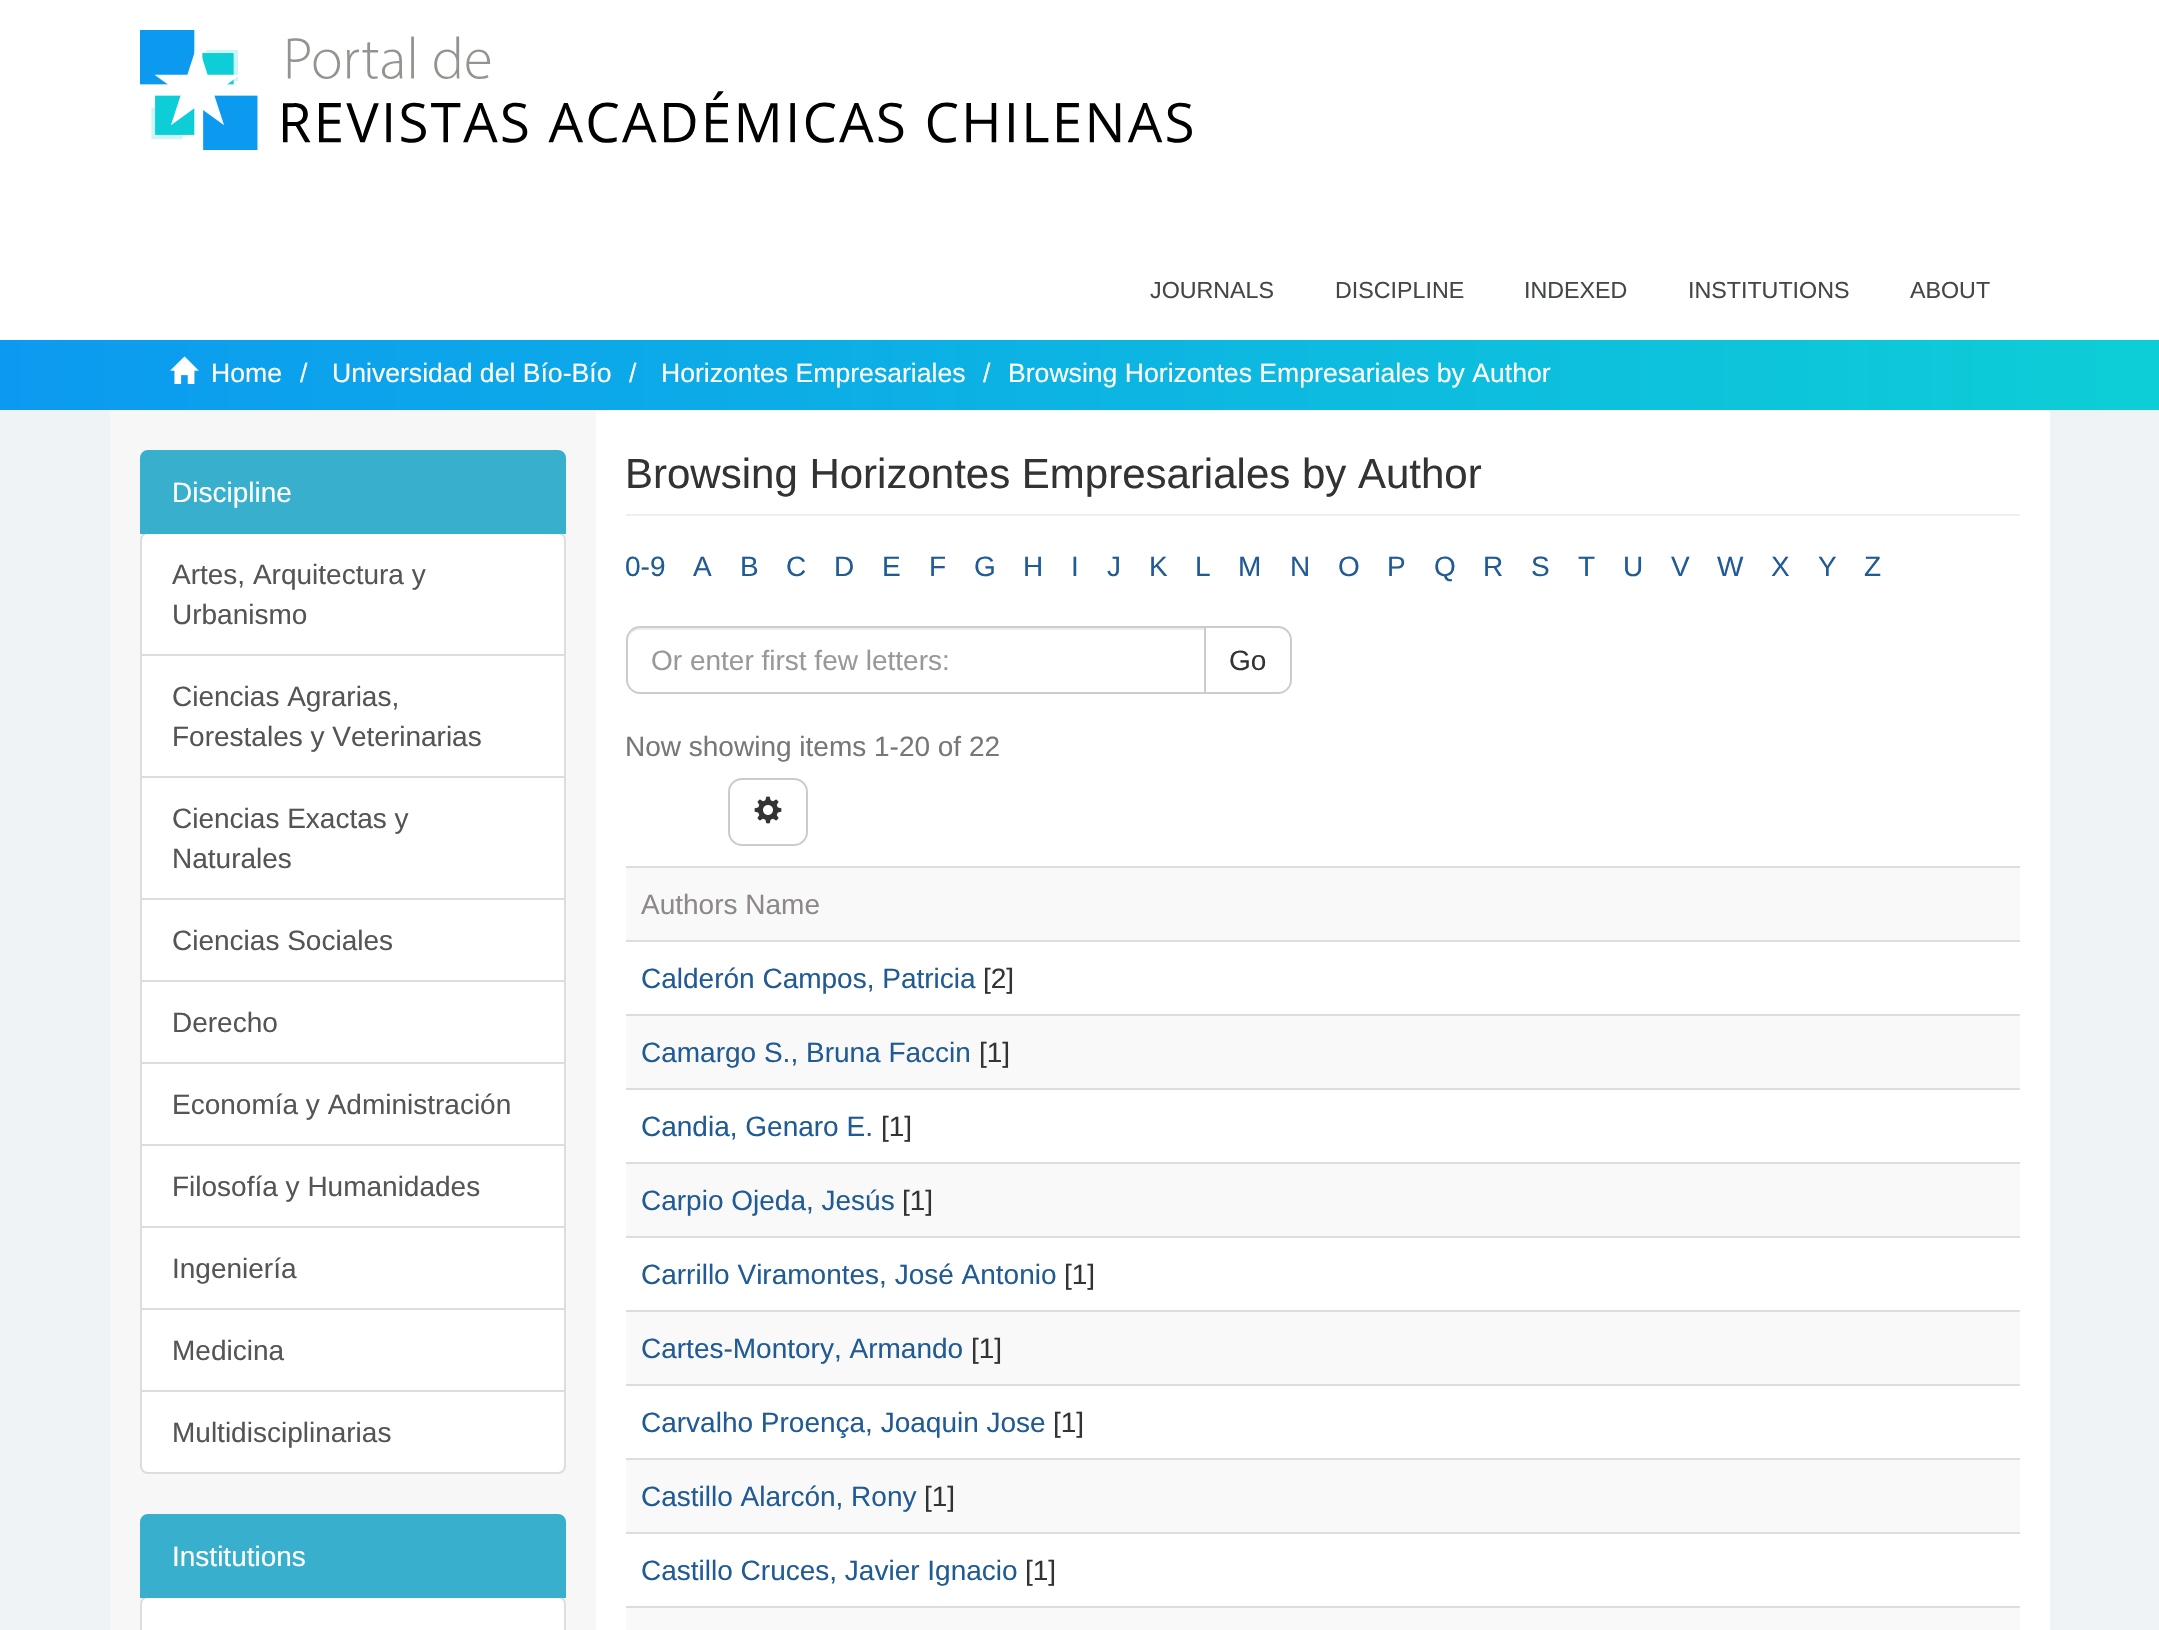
#include "include/core/SkBlurTypes.h"
#include "include/core/SkCanvas.h"
#include "include/core/SkData.h"
#include "include/core/SkFont.h"
#include "include/core/SkFontMgr.h"
#include "include/core/SkImage.h"
#include "include/core/SkMaskFilter.h"
#include "include/core/SkPaint.h"
#include "include/core/SkPathBuilder.h"
#include "include/core/SkTextBlob.h"
#include "include/effects/SkDashPathEffect.h"
#include "include/effects/SkGradientShader.h"
#include "include/utils/SkParsePath.h"

extern sk_sp<SkFontMgr> fontMgr;

static SkFont font(const char* family, int weight, float size, bool italic = false) {
    SkFontStyle style(weight, SkFontStyle::kNormal_Width,
        italic ? SkFontStyle::kItalic_Slant : SkFontStyle::kUpright_Slant);
    SkFont result(fontMgr->matchFamilyStyle(family, style), size);
    result.setSubpixel(true);
    return result;
}

static void drawLabel(SkCanvas* canvas, const char* s, float x, float y, const SkFont& font, SkColor color) {
    SkPaint ink(SkColor4f::FromColor(color));
    ink.setAntiAlias(true);
    canvas->drawString(s, x, y, font, ink);
}

static void fillRect(SkCanvas* canvas, float x, float y, float w, float h, SkColor color) {
    SkPaint ink(SkColor4f::FromColor(color));
    ink.setAntiAlias(true);
    canvas->drawRect(SkRect::MakeXYWH(x, y, w, h), ink);
}

static void drawPhoto(SkCanvas* canvas, const char* path, float x, float y, float w, float h) {
    auto image = SkImages::DeferredFromEncodedData(SkData::MakeFromFileName(path));
    canvas->drawImageRect(image, SkRect::MakeXYWH(x, y, w, h), SkSamplingOptions());
}

static SkPath parsePath(const char* data, bool evenOdd = false) {
    SkPath result = *SkParsePath::FromSVGString(data);
    if (evenOdd) result.setFillType(SkPathFillType::kEvenOdd);
    return result;
}

void draw(SkCanvas* canvas) {
    SkPaint paint;
    paint.setAntiAlias(true);
    canvas->clear(0xFFF0F3F5);
    fillRect(canvas, 0, 0, 2159, 340, 0xFFFFFFFF);
    drawPhoto(canvas, "assets/img1.png", 140, 30, 1052, 120);
    SkFont font1 = font("Liberation Sans", 400, 23.25f);
    drawLabel(canvas, "JOURNALS", 1150, 298, font1, 0xFF44474A);
    drawLabel(canvas, "DISCIPLINE", 1335, 298, font1, 0xFF44474A);
    drawLabel(canvas, "INDEXED", 1524, 298, font1, 0xFF44474A);
    drawLabel(canvas, "INSTITUTIONS", 1688, 298, font1, 0xFF44474A);
    drawLabel(canvas, "ABOUT", 1910, 298, font1, 0xFF44474A);
    {
        const SkColor colors[] = {0xFF0C9AF0, 0xFF0DCED6};
        const float stops[] = {0, 1};
        const SkPoint ends[] = {{0, 375}, {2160, 375}};
        paint.setShader(SkGradientShader::MakeLinear(ends, colors, stops, 2, SkTileMode::kClamp));
        paint.setAlpha(255);
    }
    canvas->drawRect(SkRect::MakeXYWH(0, 340, 2159, 70), paint);
    drawPhoto(canvas, "assets/img2.png", 170, 356, 29, 28);
    SkFont font2 = font("Liberation Sans", 400, 26.6f);
    drawLabel(canvas, "Home", 211, 382, font2, 0xFFFFFFFF);
    drawLabel(canvas, "/", 300, 382, font2, 0xFFFFFFFF);
    drawLabel(canvas, "Universidad del Bío-Bío", 332, 382, font2, 0xFFFFFFFF);
    drawLabel(canvas, "/", 629, 382, font2, 0xFFFFFFFF);
    drawLabel(canvas, "Horizontes Empresariales", 661, 382, font2, 0xFFFFFFFF);
    drawLabel(canvas, "/", 983, 382, font2, 0xFFFFFFFF);
    drawLabel(canvas, "Browsing Horizontes Empresariales by Author", 1008, 382, font2, 0xFFFFFFFF);
    fillRect(canvas, 110, 410, 486, 1220, 0xFFF7F7F7);
    paint.setShader(nullptr);
    paint.setColor(0xFFFFFFFF);
    canvas->drawPath(parsePath("M148 533H558C562 533 565 536 565 540V655H141V540C141 536 144 533 148 533Z"), paint);
    paint.setStroke(true);
    paint.setStrokeWidth(2);
    paint.setColor(0xFFDDDDDD);
    canvas->drawPath(parsePath("M148 533H558C562 533 565 536 565 540V655H141V540C141 536 144 533 148 533Z"), paint);
    paint.setStroke(false);
    paint.setColor(0xFF39AFCE);
    canvas->drawPath(parsePath("M148 451H558C562 451 565 454 565 458V533H141V458C141 454 144 451 148 451Z"), paint);
    paint.setStroke(true);
    canvas->drawPath(parsePath("M148 451H558C562 451 565 454 565 458V533H141V458C141 454 144 451 148 451Z"), paint);
    SkFont font3 = font("Liberation Sans", 400, 28);
    drawLabel(canvas, "Discipline", 172, 502, font3, 0xFFFFFFFF);
    drawLabel(canvas, "Artes, Arquitectura y", 172, 584, font3, 0xFF555555);
    drawLabel(canvas, "Urbanismo", 172, 624, font3, 0xFF555555);
    paint.setStroke(false);
    paint.setColor(0xFFFFFFFF);
    canvas->drawRect(SkRect::MakeXYWH(141, 655, 424, 122), paint);
    paint.setStroke(true);
    paint.setColor(0xFFDDDDDD);
    canvas->drawRect(SkRect::MakeXYWH(141, 655, 424, 122), paint);
    drawLabel(canvas, "Ciencias Agrarias,", 172, 706, font3, 0xFF555555);
    drawLabel(canvas, "Forestales y Veterinarias", 172, 746, font3, 0xFF555555);
    paint.setStroke(false);
    paint.setColor(0xFFFFFFFF);
    canvas->drawRect(SkRect::MakeXYWH(141, 777, 424, 122), paint);
    paint.setStroke(true);
    paint.setColor(0xFFDDDDDD);
    canvas->drawRect(SkRect::MakeXYWH(141, 777, 424, 122), paint);
    drawLabel(canvas, "Ciencias Exactas y", 172, 828, font3, 0xFF555555);
    drawLabel(canvas, "Naturales", 172, 868, font3, 0xFF555555);
    paint.setStroke(false);
    paint.setColor(0xFFFFFFFF);
    canvas->drawRect(SkRect::MakeXYWH(141, 899, 424, 82), paint);
    paint.setStroke(true);
    paint.setColor(0xFFDDDDDD);
    canvas->drawRect(SkRect::MakeXYWH(141, 899, 424, 82), paint);
    drawLabel(canvas, "Ciencias Sociales", 172, 950, font3, 0xFF555555);
    paint.setStroke(false);
    paint.setColor(0xFFFFFFFF);
    canvas->drawRect(SkRect::MakeXYWH(141, 981, 424, 82), paint);
    paint.setStroke(true);
    paint.setColor(0xFFDDDDDD);
    canvas->drawRect(SkRect::MakeXYWH(141, 981, 424, 82), paint);
    drawLabel(canvas, "Derecho", 172, 1032, font3, 0xFF555555);
    paint.setStroke(false);
    paint.setColor(0xFFFFFFFF);
    canvas->drawRect(SkRect::MakeXYWH(141, 1063, 424, 82), paint);
    paint.setStroke(true);
    paint.setColor(0xFFDDDDDD);
    canvas->drawRect(SkRect::MakeXYWH(141, 1063, 424, 82), paint);
    drawLabel(canvas, "Economía y Administración", 172, 1114, font3, 0xFF555555);
    paint.setStroke(false);
    paint.setColor(0xFFFFFFFF);
    canvas->drawRect(SkRect::MakeXYWH(141, 1145, 424, 82), paint);
    paint.setStroke(true);
    paint.setColor(0xFFDDDDDD);
    canvas->drawRect(SkRect::MakeXYWH(141, 1145, 424, 82), paint);
    drawLabel(canvas, "Filosofía y Humanidades", 172, 1196, font3, 0xFF555555);
    paint.setStroke(false);
    paint.setColor(0xFFFFFFFF);
    canvas->drawRect(SkRect::MakeXYWH(141, 1227, 424, 82), paint);
    paint.setStroke(true);
    paint.setColor(0xFFDDDDDD);
    canvas->drawRect(SkRect::MakeXYWH(141, 1227, 424, 82), paint);
    drawLabel(canvas, "Ingeniería", 172, 1278, font3, 0xFF555555);
    paint.setStroke(false);
    paint.setColor(0xFFFFFFFF);
    canvas->drawRect(SkRect::MakeXYWH(141, 1309, 424, 82), paint);
    paint.setStroke(true);
    paint.setColor(0xFFDDDDDD);
    canvas->drawRect(SkRect::MakeXYWH(141, 1309, 424, 82), paint);
    drawLabel(canvas, "Medicina", 172, 1360, font3, 0xFF555555);
    paint.setStroke(false);
    paint.setColor(0xFFFFFFFF);
    canvas->drawPath(parsePath("M141 1391H565V1466C565 1470 562 1473 558 1473H148C144 1473 141 1470 141 1466Z"), paint);
    paint.setStroke(true);
    paint.setColor(0xFFDDDDDD);
    canvas->drawPath(parsePath("M141 1391H565V1466C565 1470 562 1473 558 1473H148C144 1473 141 1470 141 1466Z"), paint);
    drawLabel(canvas, "Multidisciplinarias", 172, 1442, font3, 0xFF555555);
    paint.setStroke(false);
    paint.setColor(0xFFFFFFFF);
    canvas->drawPath(parsePath("M148 1597H558C562 1597 565 1600 565 1604V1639H141V1604C141 1600 144 1597 148 1597Z"), paint);
    paint.setStroke(true);
    paint.setColor(0xFFDDDDDD);
    canvas->drawPath(parsePath("M148 1597H558C562 1597 565 1600 565 1604V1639H141V1604C141 1600 144 1597 148 1597Z"), paint);
    paint.setStroke(false);
    paint.setColor(0xFF39AFCE);
    canvas->drawPath(parsePath("M148 1515H558C562 1515 565 1518 565 1522V1597H141V1522C141 1518 144 1515 148 1515Z"), paint);
    paint.setStroke(true);
    canvas->drawPath(parsePath("M148 1515H558C562 1515 565 1518 565 1522V1597H141V1522C141 1518 144 1515 148 1515Z"), paint);
    drawLabel(canvas, "Institutions", 172, 1566, font3, 0xFFFFFFFF);
    fillRect(canvas, 596, 410, 1454, 1220, 0xFFFFFFFF);
    fillRect(canvas, 626, 514, 1394, 2, 0xFFEEEEEE);
    SkFont font4 = font("Liberation Sans", 400, 42);
    drawLabel(canvas, "Browsing Horizontes Empresariales by Author", 625, 488, font4, 0xFF333333);
    drawLabel(canvas, "0-9", 625, 576, font3, 0xFF215B95);
    drawLabel(canvas, "A", 693, 576, font3, 0xFF215B95);
    drawLabel(canvas, "B", 740, 576, font3, 0xFF215B95);
    drawLabel(canvas, "C", 786, 576, font3, 0xFF215B95);
    drawLabel(canvas, "D", 834, 576, font3, 0xFF215B95);
    drawLabel(canvas, "E", 882, 576, font3, 0xFF215B95);
    drawLabel(canvas, "F", 929, 576, font3, 0xFF215B95);
    drawLabel(canvas, "G", 974, 576, font3, 0xFF215B95);
    drawLabel(canvas, "H", 1023, 576, font3, 0xFF215B95);
    drawLabel(canvas, "I", 1071, 576, font3, 0xFF215B95);
    drawLabel(canvas, "J", 1107, 576, font3, 0xFF215B95);
    drawLabel(canvas, "K", 1149, 576, font3, 0xFF215B95);
    drawLabel(canvas, "L", 1195, 576, font3, 0xFF215B95);
    drawLabel(canvas, "M", 1238, 576, font3, 0xFF215B95);
    drawLabel(canvas, "N", 1290, 576, font3, 0xFF215B95);
    drawLabel(canvas, "O", 1338, 576, font3, 0xFF215B95);
    drawLabel(canvas, "P", 1387, 576, font3, 0xFF215B95);
    drawLabel(canvas, "Q", 1434, 576, font3, 0xFF215B95);
    drawLabel(canvas, "R", 1483, 576, font3, 0xFF215B95);
    drawLabel(canvas, "S", 1531, 576, font3, 0xFF215B95);
    drawLabel(canvas, "T", 1578, 576, font3, 0xFF215B95);
    drawLabel(canvas, "U", 1623, 576, font3, 0xFF215B95);
    drawLabel(canvas, "V", 1671, 576, font3, 0xFF215B95);
    drawLabel(canvas, "W", 1717, 576, font3, 0xFF215B95);
    drawLabel(canvas, "X", 1771, 576, font3, 0xFF215B95);
    drawLabel(canvas, "Y", 1818, 576, font3, 0xFF215B95);
    drawLabel(canvas, "Z", 1864, 576, font3, 0xFF215B95);
    paint.setColor(0xFFCCCCCC);
    canvas->drawPath(parsePath("M1205 627H1278C1285 627 1291 633 1291 640V680C1291 687 1285 693 1278 693H1205Z"), paint);
    paint.setStroke(false);
    paint.setColor(0xFFFFFFFF);
    canvas->drawPath(parsePath("M640 626H1206V694H640C632.5 694 626 687.5 626 680V640C626 632.5 632.5 626 640 626Z"), paint);
    paint.setColor(0xFFECECEC);
    canvas->drawPath(parsePath("M640 630H1204V628H640C632 628 628 635 628 642C628 635 633 630 640 630Z"), paint);
    paint.setStroke(true);
    paint.setColor(0xFFCCCCCC);
    canvas->drawPath(parsePath("M640 627H1205V693H640C633 693 627 687 627 680V640C627 633 633 627 640 627Z"), paint);
    drawLabel(canvas, "Or enter first few letters:", 651, 670, font3, 0xFF999999);
    drawLabel(canvas, "Go", 1229, 670, font3, 0xFF333333);
    drawLabel(canvas, "Now showing items 1-20 of 22", 625, 756, font3, 0xFF777777);
    canvas->drawRoundRect(SkRect::MakeXYWH(729, 779, 78, 66), 13, 13, paint);
    drawPhoto(canvas, "assets/img3.png", 754, 796, 28, 28);
    fillRect(canvas, 626, 868, 1394, 72, 0xFFF9F9F9);
    fillRect(canvas, 626, 866, 1394, 2, 0xFFDDDDDD);
    drawLabel(canvas, "Authors Name", 641, 914, font3, 0xFF8D8989);
    fillRect(canvas, 626, 940, 1394, 2, 0xFFDDDDDD);
    drawLabel(canvas, "Calderón Campos, Patricia", 641, 988, font3, 0xFF215B95);
    drawLabel(canvas, "[2]", 983, 988, font3, 0xFF333333);
    fillRect(canvas, 626, 1016, 1394, 72, 0xFFF9F9F9);
    fillRect(canvas, 626, 1014, 1394, 2, 0xFFDDDDDD);
    drawLabel(canvas, "Camargo S., Bruna Faccin", 641, 1062, font3, 0xFF215B95);
    drawLabel(canvas, "[1]", 979, 1062, font3, 0xFF333333);
    fillRect(canvas, 626, 1088, 1394, 2, 0xFFDDDDDD);
    drawLabel(canvas, "Candia, Genaro E.", 641, 1136, font3, 0xFF215B95);
    drawLabel(canvas, "[1]", 881, 1136, font3, 0xFF333333);
    fillRect(canvas, 626, 1164, 1394, 72, 0xFFF9F9F9);
    fillRect(canvas, 626, 1162, 1394, 2, 0xFFDDDDDD);
    drawLabel(canvas, "Carpio Ojeda, Jesús", 641, 1210, font3, 0xFF215B95);
    drawLabel(canvas, "[1]", 902, 1210, font3, 0xFF333333);
    fillRect(canvas, 626, 1236, 1394, 2, 0xFFDDDDDD);
    drawLabel(canvas, "Carrillo Viramontes, José Antonio", 641, 1284, font3, 0xFF215B95);
    drawLabel(canvas, "[1]", 1064, 1284, font3, 0xFF333333);
    fillRect(canvas, 626, 1312, 1394, 72, 0xFFF9F9F9);
    fillRect(canvas, 626, 1310, 1394, 2, 0xFFDDDDDD);
    drawLabel(canvas, "Cartes-Montory, Armando", 641, 1358, font3, 0xFF215B95);
    drawLabel(canvas, "[1]", 971, 1358, font3, 0xFF333333);
    fillRect(canvas, 626, 1384, 1394, 2, 0xFFDDDDDD);
    drawLabel(canvas, "Carvalho Proença, Joaquin Jose", 641, 1432, font3, 0xFF215B95);
    drawLabel(canvas, "[1]", 1053, 1432, font3, 0xFF333333);
    fillRect(canvas, 626, 1460, 1394, 72, 0xFFF9F9F9);
    fillRect(canvas, 626, 1458, 1394, 2, 0xFFDDDDDD);
    drawLabel(canvas, "Castillo Alarcón, Rony", 641, 1506, font3, 0xFF215B95);
    drawLabel(canvas, "[1]", 924, 1506, font3, 0xFF333333);
    fillRect(canvas, 626, 1532, 1394, 2, 0xFFDDDDDD);
    drawLabel(canvas, "Castillo Cruces, Javier Ignacio", 641, 1580, font3, 0xFF215B95);
    drawLabel(canvas, "[1]", 1025, 1580, font3, 0xFF333333);
    fillRect(canvas, 626, 1608, 1394, 22, 0xFFF9F9F9);
    fillRect(canvas, 626, 1606, 1394, 2, 0xFFDDDDDD);
}
